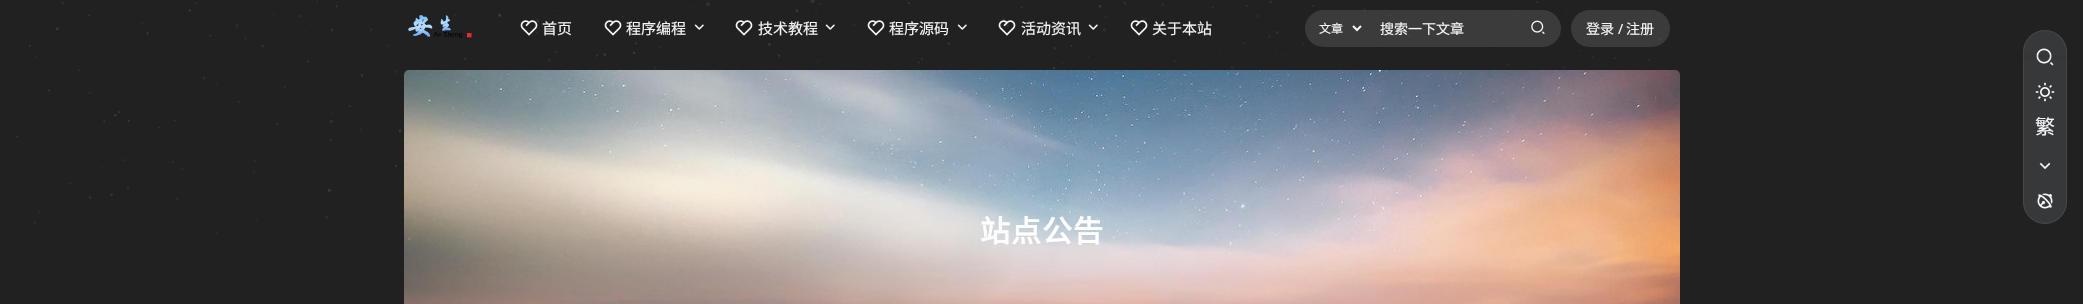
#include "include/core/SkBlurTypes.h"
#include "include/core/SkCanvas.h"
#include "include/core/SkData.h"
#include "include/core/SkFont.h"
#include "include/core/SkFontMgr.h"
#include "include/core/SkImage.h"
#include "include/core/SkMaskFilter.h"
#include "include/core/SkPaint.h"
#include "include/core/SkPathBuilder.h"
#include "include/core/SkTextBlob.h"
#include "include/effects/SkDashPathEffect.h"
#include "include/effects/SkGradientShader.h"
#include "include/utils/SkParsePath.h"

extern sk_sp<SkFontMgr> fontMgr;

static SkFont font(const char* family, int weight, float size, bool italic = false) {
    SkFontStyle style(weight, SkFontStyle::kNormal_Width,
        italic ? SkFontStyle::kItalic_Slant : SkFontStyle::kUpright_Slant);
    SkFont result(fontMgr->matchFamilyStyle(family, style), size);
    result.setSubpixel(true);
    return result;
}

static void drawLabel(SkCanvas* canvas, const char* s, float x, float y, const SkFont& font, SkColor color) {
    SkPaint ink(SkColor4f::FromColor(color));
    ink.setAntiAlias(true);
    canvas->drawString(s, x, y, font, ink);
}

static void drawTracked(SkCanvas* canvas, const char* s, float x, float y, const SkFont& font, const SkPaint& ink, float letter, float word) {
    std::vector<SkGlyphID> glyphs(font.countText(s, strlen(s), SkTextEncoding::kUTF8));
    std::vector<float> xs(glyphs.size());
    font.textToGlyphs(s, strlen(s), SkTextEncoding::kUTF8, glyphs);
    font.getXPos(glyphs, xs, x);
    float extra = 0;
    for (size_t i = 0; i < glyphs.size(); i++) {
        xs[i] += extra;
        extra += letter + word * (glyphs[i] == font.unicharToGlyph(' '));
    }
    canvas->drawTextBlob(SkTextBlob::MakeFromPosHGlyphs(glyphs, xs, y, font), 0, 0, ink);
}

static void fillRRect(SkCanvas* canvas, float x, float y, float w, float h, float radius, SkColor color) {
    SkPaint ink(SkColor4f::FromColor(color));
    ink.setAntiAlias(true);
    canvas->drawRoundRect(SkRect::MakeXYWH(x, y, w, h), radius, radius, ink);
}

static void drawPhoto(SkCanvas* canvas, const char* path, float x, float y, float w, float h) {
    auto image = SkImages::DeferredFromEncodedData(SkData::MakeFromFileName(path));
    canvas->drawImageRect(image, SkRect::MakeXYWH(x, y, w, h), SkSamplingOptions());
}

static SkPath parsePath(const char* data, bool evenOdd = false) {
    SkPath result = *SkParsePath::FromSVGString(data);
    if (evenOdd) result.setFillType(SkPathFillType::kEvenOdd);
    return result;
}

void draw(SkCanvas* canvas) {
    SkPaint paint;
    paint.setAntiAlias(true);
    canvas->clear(0xFF212121);
    drawPhoto(canvas, "assets/img13.png", 404, 70, 1276, 234);
    SkFont font1 = font("Noto Sans CJK SC", 700, 30);
    paint.setColor(0xFFFFFFFF);
    drawTracked(canvas, "站点公告", 980, 242, font1, paint, 1, 0);
    drawPhoto(canvas, "assets/img1.png", 16, 0, 1645, 240);
    fillRRect(canvas, 2023, 30, 44, 194, 22, 0xFF37383A);
    paint.setStroke(true);
    paint.setStrokeWidth(1);
    paint.setColor(0x40727272);
    canvas->drawRoundRect(SkRect::MakeXYWH(2023.5f, 30.5f, 43, 193), 21.5f, 21.5f, paint);
    drawPhoto(canvas, "assets/img9.png", 2036, 48, 18, 18);
    canvas->save();
    canvas->clipRect(SkRect::MakeXYWH(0, 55, 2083, 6));
    paint.setStroke(false);
    paint.setColor(0x33181818);
    paint.setMaskFilter(SkMaskFilter::MakeBlur(kNormal_SkBlurStyle, 5));
    canvas->drawRect(SkRect::MakeXYWH(0, 0, 2083, 55), paint);
    paint.setMaskFilter(nullptr);
    canvas->restore();
    drawPhoto(canvas, "assets/img2.png", 408, 15, 64, 23);
    drawPhoto(canvas, "assets/img3.png", 520, 20, 18, 16);
    SkFont font2 = font("Noto Sans CJK SC", 400, 15);
    drawLabel(canvas, "首页", 542, 34, font2, 0xFFF5F6F7);
    drawPhoto(canvas, "assets/img4.png", 604, 20, 18, 16);
    drawLabel(canvas, "程序编程", 626, 34, font2, 0xFFF5F6F7);
    drawPhoto(canvas, "assets/img5.png", 694, 24, 10, 6);
    drawPhoto(canvas, "assets/img4.png", 735, 20, 18, 16);
    drawLabel(canvas, "技术教程", 758, 34, font2, 0xFFF5F6F7);
    drawPhoto(canvas, "assets/img5.png", 825, 24, 10, 6);
    drawPhoto(canvas, "assets/img4.png", 867, 20, 18, 16);
    drawLabel(canvas, "程序源码", 889, 34, font2, 0xFFF5F6F7);
    drawPhoto(canvas, "assets/img5.png", 957, 24, 10, 6);
    drawPhoto(canvas, "assets/img6.png", 998, 20, 18, 16);
    drawLabel(canvas, "活动资讯", 1021, 34, font2, 0xFFF5F6F7);
    drawPhoto(canvas, "assets/img5.png", 1088, 24, 10, 6);
    drawPhoto(canvas, "assets/img7.png", 1130, 20, 18, 16);
    drawLabel(canvas, "关于本站", 1152, 34, font2, 0xFFF5F6F7);
    fillRRect(canvas, 1305, 10, 256, 37, 18.5f, 0x339F9F9F);
    paint.setStroke(true);
    paint.setStrokeWidth(2);
    paint.setColor(0xFFF5F6F7);
    canvas->drawPath(parsePath("M1353 26L1357 30L1361 26"), paint);
    SkFont font3 = font("Noto Sans CJK SC", 400, 12);
    drawLabel(canvas, "文章", 1319, 33, font3, 0xFFF5F6F7);
    SkFont font4 = font("Noto Sans CJK SC", 400, 14);
    drawLabel(canvas, "搜索一下文章", 1380, 34, font4, 0xFFF5F6F7);
    drawPhoto(canvas, "assets/img8.png", 1531, 20, 14, 15);
    fillRRect(canvas, 1571, 10, 99, 37, 18.5f, 0x339F9F9F);
    drawLabel(canvas, "登录", 1586, 34, font4, 0xFFF5F6F7);
    SkFont font5 = font("Noto Sans", 400, 14);
    drawLabel(canvas, "/", 1618, 34, font5, 0xFFF5F6F7);
    drawLabel(canvas, "注册", 1626, 34, font4, 0xFFF5F6F7);
    drawPhoto(canvas, "assets/img10.png", 2035, 82, 20, 20);
    SkFont font6 = font("Noto Sans CJK SC", 400, 20);
    drawLabel(canvas, "繁", 2035, 134, font6, 0xFFF5F6F7);
    drawPhoto(canvas, "assets/img11.png", 2039, 162, 12, 8);
    drawPhoto(canvas, "assets/img12.png", 2037, 193, 16, 16);
}
